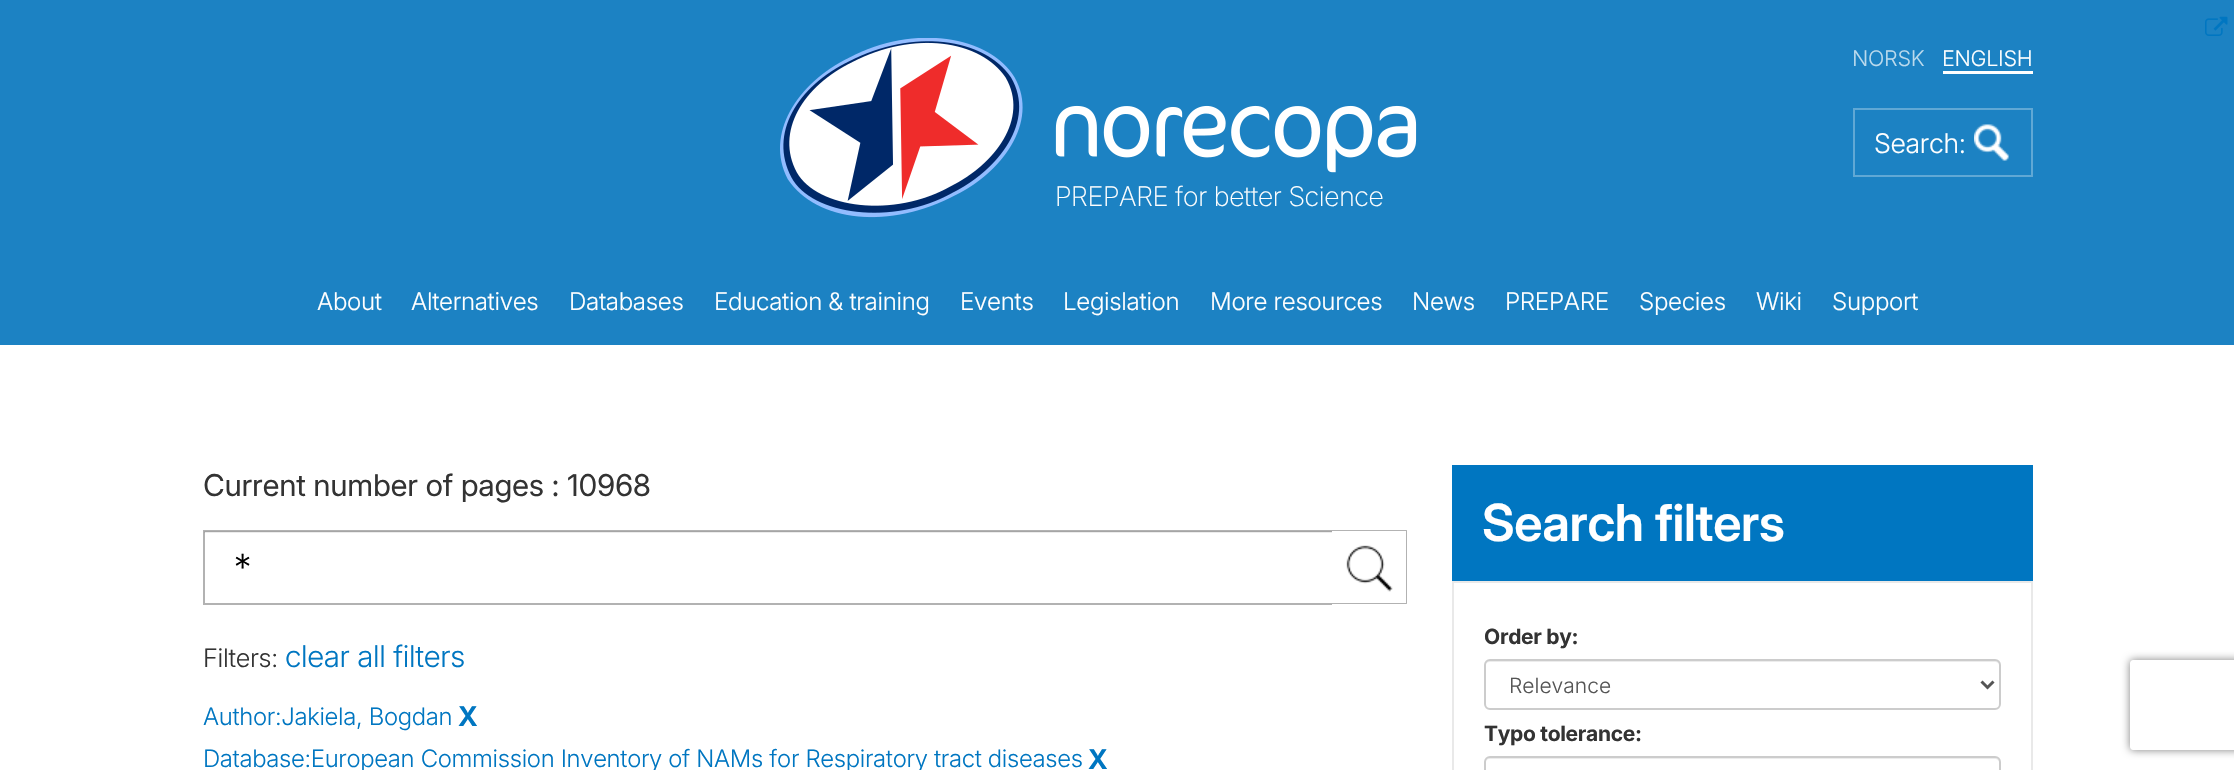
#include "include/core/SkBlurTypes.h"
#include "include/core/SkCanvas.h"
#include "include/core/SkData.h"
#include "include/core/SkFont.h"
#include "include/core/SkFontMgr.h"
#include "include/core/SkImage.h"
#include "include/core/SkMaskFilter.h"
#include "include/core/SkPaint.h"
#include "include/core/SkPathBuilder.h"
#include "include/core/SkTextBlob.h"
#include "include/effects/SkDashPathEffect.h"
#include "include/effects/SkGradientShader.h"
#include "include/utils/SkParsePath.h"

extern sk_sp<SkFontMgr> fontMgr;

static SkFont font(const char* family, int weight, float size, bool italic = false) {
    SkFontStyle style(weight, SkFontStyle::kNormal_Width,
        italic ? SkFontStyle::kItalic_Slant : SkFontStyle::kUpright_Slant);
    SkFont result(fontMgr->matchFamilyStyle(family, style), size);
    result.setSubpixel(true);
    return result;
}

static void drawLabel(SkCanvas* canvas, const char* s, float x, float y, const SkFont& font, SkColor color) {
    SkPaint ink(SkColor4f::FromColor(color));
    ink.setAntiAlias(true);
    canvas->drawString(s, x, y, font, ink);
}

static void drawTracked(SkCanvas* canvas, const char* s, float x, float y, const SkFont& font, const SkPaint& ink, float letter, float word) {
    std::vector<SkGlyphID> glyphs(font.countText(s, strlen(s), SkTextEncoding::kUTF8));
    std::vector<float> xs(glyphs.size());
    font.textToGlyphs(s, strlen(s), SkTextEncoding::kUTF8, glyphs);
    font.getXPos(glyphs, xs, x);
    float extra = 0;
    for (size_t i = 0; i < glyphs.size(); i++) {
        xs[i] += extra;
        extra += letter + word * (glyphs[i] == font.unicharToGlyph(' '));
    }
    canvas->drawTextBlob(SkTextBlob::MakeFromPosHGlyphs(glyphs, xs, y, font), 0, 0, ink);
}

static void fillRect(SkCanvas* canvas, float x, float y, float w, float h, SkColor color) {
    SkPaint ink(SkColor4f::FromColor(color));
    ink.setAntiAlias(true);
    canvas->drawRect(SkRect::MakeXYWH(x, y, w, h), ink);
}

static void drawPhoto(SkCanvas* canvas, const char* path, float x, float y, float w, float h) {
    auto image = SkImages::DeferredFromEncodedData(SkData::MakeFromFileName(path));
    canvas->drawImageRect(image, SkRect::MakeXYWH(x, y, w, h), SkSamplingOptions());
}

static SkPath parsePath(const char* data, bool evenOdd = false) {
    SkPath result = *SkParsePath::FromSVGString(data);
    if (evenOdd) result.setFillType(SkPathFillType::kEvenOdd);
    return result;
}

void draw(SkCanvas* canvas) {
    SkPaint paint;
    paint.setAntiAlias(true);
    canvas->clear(0xFFFFFFFF);
    fillRect(canvas, 0, 0, 2234, 345, 0xFF1C82C3);
    drawPhoto(canvas, "assets/img1.png", 2205, 16, 23, 20);
    SkFont font1 = font("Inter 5", 300, 21.5f);
    paint.setColor(0xFFBBDAED);
    drawTracked(canvas, "NORSK", 1852, 66, font1, paint, -0.3f, 0);
    paint.setColor(0xFFFFFFFF);
    drawTracked(canvas, "ENGLISH", 1942, 66, font1, paint, -0.3f, 0);
    fillRect(canvas, 1943, 71, 90, 3, 0xFFFFFFFF);
    paint.setStroke(true);
    paint.setStrokeWidth(2);
    paint.setColor(0xFF60A8D5);
    canvas->drawRect(SkRect::MakeXYWH(1854, 109, 178, 67), paint);
    SkFont font2 = font("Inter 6", 300, 27);
    paint.setStroke(false);
    paint.setColor(0xFFFFFFFF);
    drawTracked(canvas, "Search:", 1874, 153, font2, paint, -0.3f, 0);
    drawPhoto(canvas, "assets/img2.png", 1974, 124, 35, 37);
    drawPhoto(canvas, "assets/img3.png", 780, 38, 637, 180);
    SkFont font3 = font("Inter", 200, 27);
    drawTracked(canvas, "PREPARE for better Science", 1055, 206, font3, paint, -0.3f, 0);
    SkFont font4 = font("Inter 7", 300, 24.25f);
    drawTracked(canvas, "About", 317, 310, font4, paint, -0.3f, 0);
    drawTracked(canvas, "Alternatives", 411, 310, font4, paint, -0.3f, 0);
    drawTracked(canvas, "Databases", 569, 310, font4, paint, -0.3f, 0);
    drawTracked(canvas, "Education & training", 714, 310, font4, paint, -0.3f, 0);
    drawTracked(canvas, "Events", 960, 310, font4, paint, -0.3f, 0);
    drawTracked(canvas, "Legislation", 1063, 310, font4, paint, -0.3f, 0);
    drawTracked(canvas, "More resources", 1210, 310, font4, paint, -0.3f, 0);
    drawTracked(canvas, "News", 1412, 310, font4, paint, -0.3f, 0);
    drawTracked(canvas, "PREPARE", 1505, 310, font4, paint, -0.3f, 0);
    drawTracked(canvas, "Species", 1639, 310, font4, paint, -0.3f, 0);
    drawTracked(canvas, "Wiki", 1756, 310, font4, paint, -0.3f, 0);
    drawTracked(canvas, "Support", 1832, 310, font4, paint, -0.3f, 0);
    SkFont font5 = font("Inter", 400, 30);
    paint.setColor(0xFF333333);
    drawTracked(canvas, "Current number of pages : 10968", 203, 496, font5, paint, -0.3f, 0);
    fillRect(canvas, 204, 531, 1128, 2, 0xFFECECEC);
    paint.setStroke(true);
    paint.setColor(0x4D000000);
    canvas->drawRect(SkRect::MakeXYWH(204, 531, 1202, 73), paint);
    SkFont font6 = font("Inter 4", 300, 36);
    drawLabel(canvas, "*", 234, 580, font6, 0xFF000000);
    fillRect(canvas, 1332, 530, 75, 75, 0xFFFFFFFF);
    drawPhoto(canvas, "assets/img4.png", 1346, 545, 47, 47);
    paint.setStroke(false);
    paint.setColor(0xFFB3B3B3);
    canvas->drawPath(parsePath("M1332 530H1407L1406 531H1332Z"), paint);
    paint.setColor(0x4D000000);
    canvas->drawPath(parsePath("M1407 530V604L1406 603V531Z"), paint);
    canvas->drawPath(parsePath("M1407 604H1332V603H1406Z"), paint);
    SkFont font7 = font("Inter", 300, 25.5f);
    paint.setColor(0xFF333333);
    drawTracked(canvas, "Filters:", 203, 667, font7, paint, -0.3f, 0);
    SkFont font8 = font("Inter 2", 300, 30);
    paint.setColor(0xFF0076C1);
    drawTracked(canvas, "clear all filters", 285, 667, font8, paint, -0.3f, 0);
    SkFont font9 = font("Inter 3", 300, 24);
    drawTracked(canvas, "Author:Jakiela, Bogdan", 203, 725, font9, paint, -0.3f, 0);
    SkFont font10 = font("Inter", 700, 27);
    drawTracked(canvas, "X", 458, 726, font10, paint, -0.3f, 0);
    drawTracked(canvas, "Database:European Commission Inventory of NAMs for Respiratory tract diseases", 203, 767, font9, paint, -0.3f, 0);
    drawTracked(canvas, "X", 1088, 769, font10, paint, -0.3f, 0);
    fillRect(canvas, 1452, 465, 581, 116, 0xFF0076C1);
    SkFont font11 = font("Inter", 600, 51);
    paint.setColor(0xFFFFFFFF);
    drawTracked(canvas, "Search filters", 1482, 541, font11, paint, -0.3f, 0);
    paint.setStroke(true);
    paint.setColor(0xFFE9E9E9);
    canvas->drawRect(SkRect::MakeXYWH(1453, 582, 579, 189), paint);
    SkFont font12 = font("Inter 2", 700, 21);
    paint.setStroke(false);
    paint.setColor(0xFF333333);
    drawTracked(canvas, "Order by:", 1484, 644, font12, paint, -0.3f, 0);
    paint.setColor(0xFFECECEC);
    canvas->drawPath(parsePath("M1490 662H1995C1997 662 2000 664 2000 666V665C2000 662 1998 660 1995 660H1490C1487 660 1485 662 1485 665V666C1485 664 1487 662 1490 662Z"), paint);
    paint.setStroke(true);
    paint.setColor(0xFFCCCCCC);
    canvas->drawRoundRect(SkRect::MakeXYWH(1485, 660, 515, 49), 5, 5, paint);
    paint.setStrokeWidth(3);
    paint.setColor(0xFF555555);
    canvas->drawPath(parsePath("M1981.5 681.5L1987.5 687.5L1993.5 681.5"), paint);
    SkFont font13 = font("Inter 5", 300, 21);
    drawLabel(canvas, "Relevance", 1509, 693, font13, 0xFF555555);
    paint.setStroke(false);
    paint.setColor(0xFF333333);
    drawTracked(canvas, "Typo tolerance:", 1484, 741, font12, paint, -0.3f, 0);
    paint.setColor(0xFFECECEC);
    canvas->drawPath(parsePath("M1490 759H1995C1997 759 2000 761 2000 764V763C2000 760 1998 758 1995 758H1490C1487 758 1485 760 1485 763V764C1485 761 1487 759 1490 759Z"), paint);
    paint.setStroke(true);
    paint.setStrokeWidth(2);
    paint.setColor(0xFFCCCCCC);
    canvas->drawRoundRect(SkRect::MakeXYWH(1485, 757, 515, 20), 5, 5, paint);
    canvas->save();
    canvas->clipPath(parsePath("M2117 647H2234V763H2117ZM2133 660H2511C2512.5 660 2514 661.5 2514 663V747C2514 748.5 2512.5 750 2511 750H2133C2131.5 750 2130 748.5 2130 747V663C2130 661.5 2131.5 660 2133 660Z", true), true);
    paint.setStroke(false);
    paint.setColor(0xFF808080);
    paint.setMaskFilter(SkMaskFilter::MakeBlur(kNormal_SkBlurStyle, 4));
    canvas->drawRoundRect(SkRect::MakeXYWH(2130, 660, 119, 90), 3, 3, paint);
    paint.setMaskFilter(nullptr);
    canvas->restore();
}
